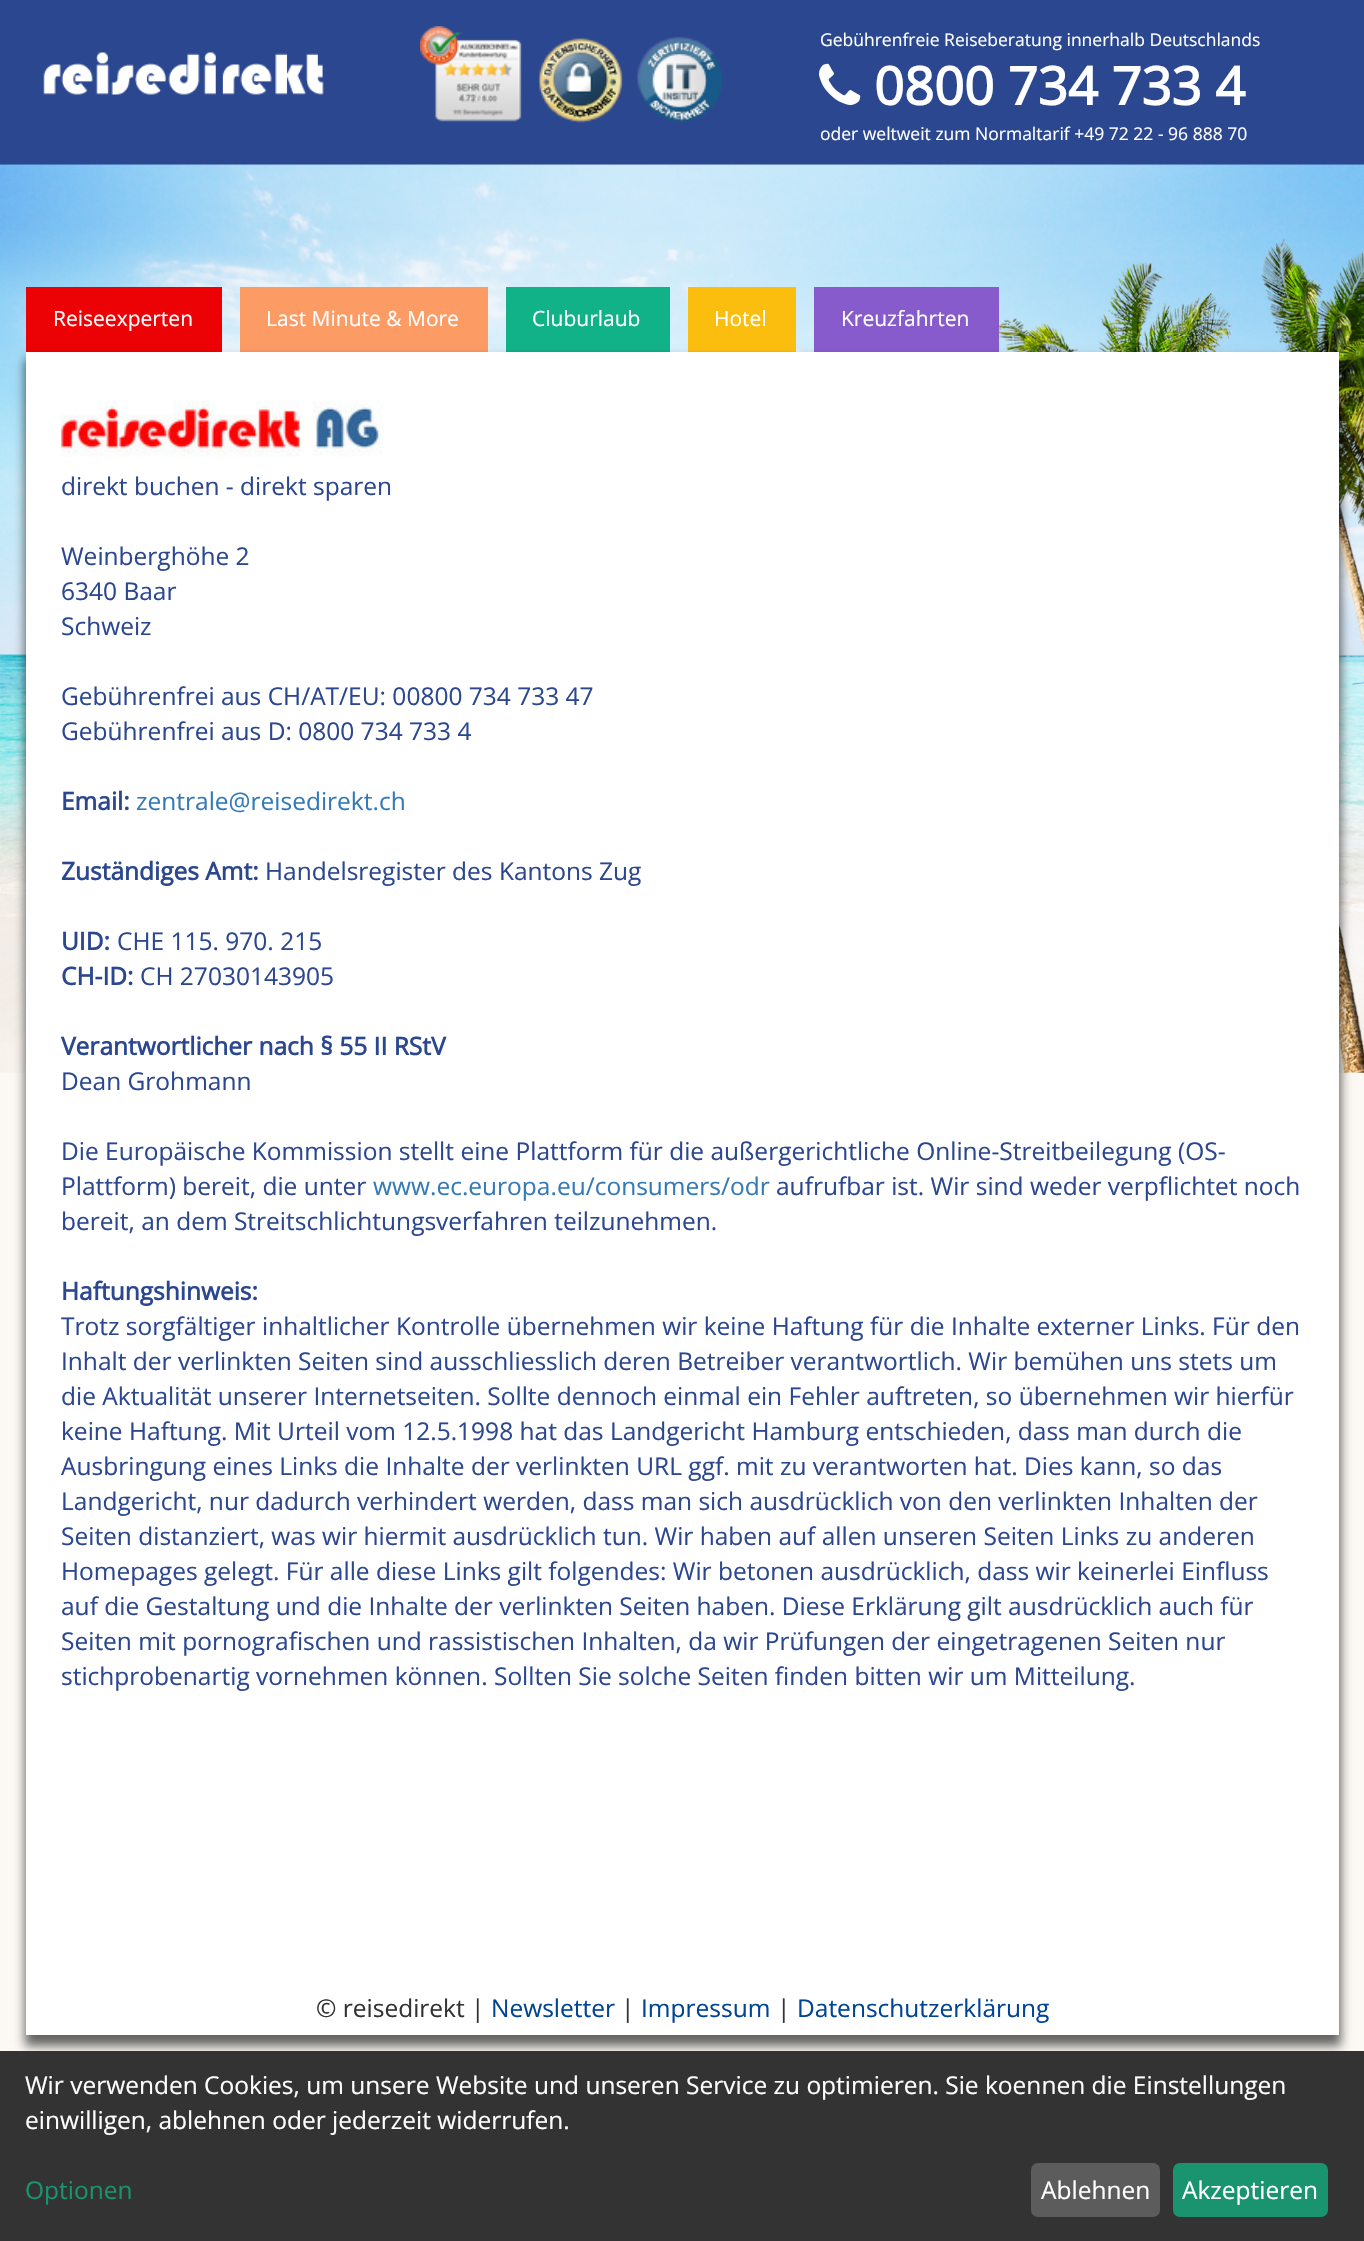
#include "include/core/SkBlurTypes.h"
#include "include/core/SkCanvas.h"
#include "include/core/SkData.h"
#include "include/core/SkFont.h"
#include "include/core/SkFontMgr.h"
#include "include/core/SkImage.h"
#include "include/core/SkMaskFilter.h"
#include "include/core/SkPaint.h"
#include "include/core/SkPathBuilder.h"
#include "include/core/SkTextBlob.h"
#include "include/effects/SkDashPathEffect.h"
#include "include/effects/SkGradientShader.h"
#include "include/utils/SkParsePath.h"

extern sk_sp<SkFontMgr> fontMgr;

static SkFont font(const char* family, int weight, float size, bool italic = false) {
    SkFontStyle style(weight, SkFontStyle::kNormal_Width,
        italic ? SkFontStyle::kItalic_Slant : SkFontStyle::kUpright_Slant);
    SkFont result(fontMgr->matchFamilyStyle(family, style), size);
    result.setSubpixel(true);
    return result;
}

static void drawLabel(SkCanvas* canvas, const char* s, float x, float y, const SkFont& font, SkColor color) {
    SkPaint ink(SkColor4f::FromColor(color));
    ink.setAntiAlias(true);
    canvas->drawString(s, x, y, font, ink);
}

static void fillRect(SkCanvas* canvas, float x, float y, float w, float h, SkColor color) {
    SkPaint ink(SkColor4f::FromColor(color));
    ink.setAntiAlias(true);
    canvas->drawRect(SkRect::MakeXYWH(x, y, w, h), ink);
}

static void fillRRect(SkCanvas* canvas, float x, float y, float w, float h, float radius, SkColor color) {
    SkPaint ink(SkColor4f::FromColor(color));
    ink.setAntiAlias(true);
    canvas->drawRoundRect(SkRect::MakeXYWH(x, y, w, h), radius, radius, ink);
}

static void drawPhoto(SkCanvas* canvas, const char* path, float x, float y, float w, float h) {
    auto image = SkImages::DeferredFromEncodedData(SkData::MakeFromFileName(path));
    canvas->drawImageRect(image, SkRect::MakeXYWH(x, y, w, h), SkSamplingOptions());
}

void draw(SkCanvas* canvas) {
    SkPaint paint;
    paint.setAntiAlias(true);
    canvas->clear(0xFFFCF9F4);
    fillRect(canvas, 0, 0, 1364, 165, 0xFF2B4790);
    drawPhoto(canvas, "assets/img1.png", 43, 52, 281, 43);
    drawPhoto(canvas, "assets/img2.png", 420, 26, 303, 97);
    SkFont font1 = font("Open Sans", 400, 17.5f);
    drawLabel(canvas, "Gebührenfreie Reiseberatung innerhalb Deutschlands", 820, 46, font1, 0xFFFFFFFF);
    drawPhoto(canvas, "assets/img3.png", 819, 63, 42, 42);
    SkFont font2 = font("Open Sans", 700, 52.5f);
    drawLabel(canvas, "0800 734 733 4", 874, 105, font2, 0xFFFFFFFF);
    drawLabel(canvas, "oder weltweit zum Normaltarif +49 72 22 - 96 888 70", 820, 140, font1, 0xFFFFFFFF);
    drawPhoto(canvas, "assets/img4.png", 0, 164, 1364, 909);
    fillRect(canvas, 26, 287, 196, 65, 0xFFEC0104);
    SkFont font3 = font("Open Sans", 400, 21);
    drawLabel(canvas, "Reiseexperten", 53, 326, font3, 0xFFFFFFFF);
    fillRect(canvas, 240, 287, 248, 65, 0xFFFD9B65);
    drawLabel(canvas, "Last Minute & More", 266, 326, font3, 0xFFFFFFFF);
    fillRect(canvas, 506, 287, 164, 65, 0xFF11B288);
    drawLabel(canvas, "Cluburlaub", 532, 326, font3, 0xFFFFFFFF);
    fillRect(canvas, 688, 287, 108, 65, 0xFFFCBE0E);
    drawLabel(canvas, "Hotel", 714, 326, font3, 0xFFFFFFFF);
    fillRect(canvas, 814, 287, 185, 65, 0xFF885BCC);
    drawLabel(canvas, "Kreuzfahrten", 841, 326, font3, 0xFFFFFFFF);
    paint.setColor(0x99000000);
    paint.setMaskFilter(SkMaskFilter::MakeBlur(kNormal_SkBlurStyle, 5));
    canvas->drawRect(SkRect::MakeXYWH(25, 359, 1316, 1687), paint);
    paint.setMaskFilter(nullptr);
    fillRect(canvas, 26, 352, 1313, 1683, 0xFFFFFFFF);
    drawPhoto(canvas, "assets/img5.png", 61, 400, 322, 57);
    SkFont font4 = font("Open Sans", 400, 24.5f);
    drawLabel(canvas, "direkt buchen - direkt sparen", 61, 495, font4, 0xFF2B4790);
    drawLabel(canvas, "Weinberghöhe 2", 61, 565, font4, 0xFF2B4790);
    drawLabel(canvas, "6340 Baar", 61, 600, font4, 0xFF2B4790);
    drawLabel(canvas, "Schweiz", 61, 635, font4, 0xFF2B4790);
    drawLabel(canvas, "Gebührenfrei aus CH/AT/EU: 00800 734 733 47", 61, 705, font4, 0xFF2B4790);
    drawLabel(canvas, "Gebührenfrei aus D: 0800 734 733 4", 61, 740, font4, 0xFF2B4790);
    SkFont font5 = font("Open Sans", 700, 24.5f);
    drawLabel(canvas, "Email:", 61, 810, font5, 0xFF2B4790);
    drawLabel(canvas, "zentrale@reisedirekt.ch", 136, 810, font4, 0xFF337AB7);
    drawLabel(canvas, "Zuständiges Amt:", 61, 880, font5, 0xFF2B4790);
    drawLabel(canvas, "Handelsregister des Kantons Zug", 265, 880, font4, 0xFF2B4790);
    drawLabel(canvas, "UID:", 61, 950, font5, 0xFF2B4790);
    drawLabel(canvas, "CHE 115. 970. 215", 117, 950, font4, 0xFF2B4790);
    drawLabel(canvas, "CH-ID:", 61, 985, font5, 0xFF2B4790);
    drawLabel(canvas, "CH 27030143905", 140, 985, font4, 0xFF2B4790);
    drawLabel(canvas, "Verantwortlicher nach § 55 II RStV", 61, 1055, font5, 0xFF2B4790);
    drawLabel(canvas, "Dean Grohmann", 61, 1090, font4, 0xFF2B4790);
    drawLabel(canvas, "Die Europäische Kommission stellt eine Plattform für die außergerichtliche Online-Streitbeilegung (OS-", 61, 1160, font4, 0xFF2B4790);
    drawLabel(canvas, "Plattform) bereit, die unter", 61, 1195, font4, 0xFF2B4790);
    drawLabel(canvas, "www.ec.europa.eu/consumers/odr", 373, 1195, font4, 0xFF337AB7);
    drawLabel(canvas, "aufrufbar ist. Wir sind weder verpflichtet noch", 776, 1195, font4, 0xFF2B4790);
    drawLabel(canvas, "bereit, an dem Streitschlichtungsverfahren teilzunehmen.", 61, 1230, font4, 0xFF2B4790);
    drawLabel(canvas, "Haftungshinweis:", 61, 1300, font5, 0xFF2B4790);
    drawLabel(canvas, "Trotz sorgfältiger inhaltlicher Kontrolle übernehmen wir keine Haftung für die Inhalte externer Links. Für den", 61, 1335, font4, 0xFF2B4790);
    drawLabel(canvas, "Inhalt der verlinkten Seiten sind ausschliesslich deren Betreiber verantwortlich. Wir bemühen uns stets um", 61, 1370, font4, 0xFF2B4790);
    drawLabel(canvas, "die Aktualität unserer Internetseiten. Sollte dennoch einmal ein Fehler auftreten, so übernehmen wir hierfür", 61, 1405, font4, 0xFF2B4790);
    drawLabel(canvas, "keine Haftung. Mit Urteil vom 12.5.1998 hat das Landgericht Hamburg entschieden, dass man durch die", 61, 1440, font4, 0xFF2B4790);
    drawLabel(canvas, "Ausbringung eines Links die Inhalte der verlinkten URL ggf. mit zu verantworten hat. Dies kann, so das", 61, 1475, font4, 0xFF2B4790);
    drawLabel(canvas, "Landgericht, nur dadurch verhindert werden, dass man sich ausdrücklich von den verlinkten Inhalten der", 61, 1510, font4, 0xFF2B4790);
    drawLabel(canvas, "Seiten distanziert, was wir hiermit ausdrücklich tun. Wir haben auf allen unseren Seiten Links zu anderen", 61, 1545, font4, 0xFF2B4790);
    drawLabel(canvas, "Homepages gelegt. Für alle diese Links gilt folgendes: Wir betonen ausdrücklich, dass wir keinerlei Einfluss", 61, 1580, font4, 0xFF2B4790);
    drawLabel(canvas, "auf die Gestaltung und die Inhalte der verlinkten Seiten haben. Diese Erklärung gilt ausdrücklich auch für", 61, 1615, font4, 0xFF2B4790);
    drawLabel(canvas, "Seiten mit pornografischen und rassistischen Inhalten, da wir Prüfungen der eingetragenen Seiten nur", 61, 1650, font4, 0xFF2B4790);
    drawLabel(canvas, "stichprobenartig vornehmen können. Sollten Sie solche Seiten finden bitten wir um Mitteilung.", 61, 1685, font4, 0xFF2B4790);
    drawLabel(canvas, "© reisedirekt |", 316, 2017, font4, 0xFF333333);
    drawLabel(canvas, "Newsletter", 491, 2017, font4, 0xFF004494);
    drawLabel(canvas, "|", 621, 2017, font4, 0xFF333333);
    drawLabel(canvas, "Impressum", 641, 2017, font4, 0xFF004494);
    drawLabel(canvas, "|", 777, 2017, font4, 0xFF333333);
    drawLabel(canvas, "Datenschutzerklärung", 797, 2017, font4, 0xFF004494);
    fillRect(canvas, 0, 2051, 1364, 190, 0xFF333333);
    drawLabel(canvas, "Wir verwenden Cookies, um unsere Website und unseren Service zu optimieren. Sie koennen die Einstellungen", 25, 2094, font4, 0xFFFFFFFF);
    drawLabel(canvas, "einwilligen, ablehnen oder jederzeit widerrufen.", 25, 2129, font4, 0xFFFFFFFF);
    drawLabel(canvas, "Optionen", 25, 2199, font4, 0xFF1A936F);
    fillRRect(canvas, 1031, 2163, 129, 54, 7, 0xFF5C5C5C);
    drawLabel(canvas, "Ablehnen", 1041, 2199, font4, 0xFFFFFFFF);
    fillRRect(canvas, 1173, 2163, 155, 54, 7, 0xFF1A936F);
    drawLabel(canvas, "Akzeptieren", 1182, 2199, font4, 0xFFFFFFFF);
}
